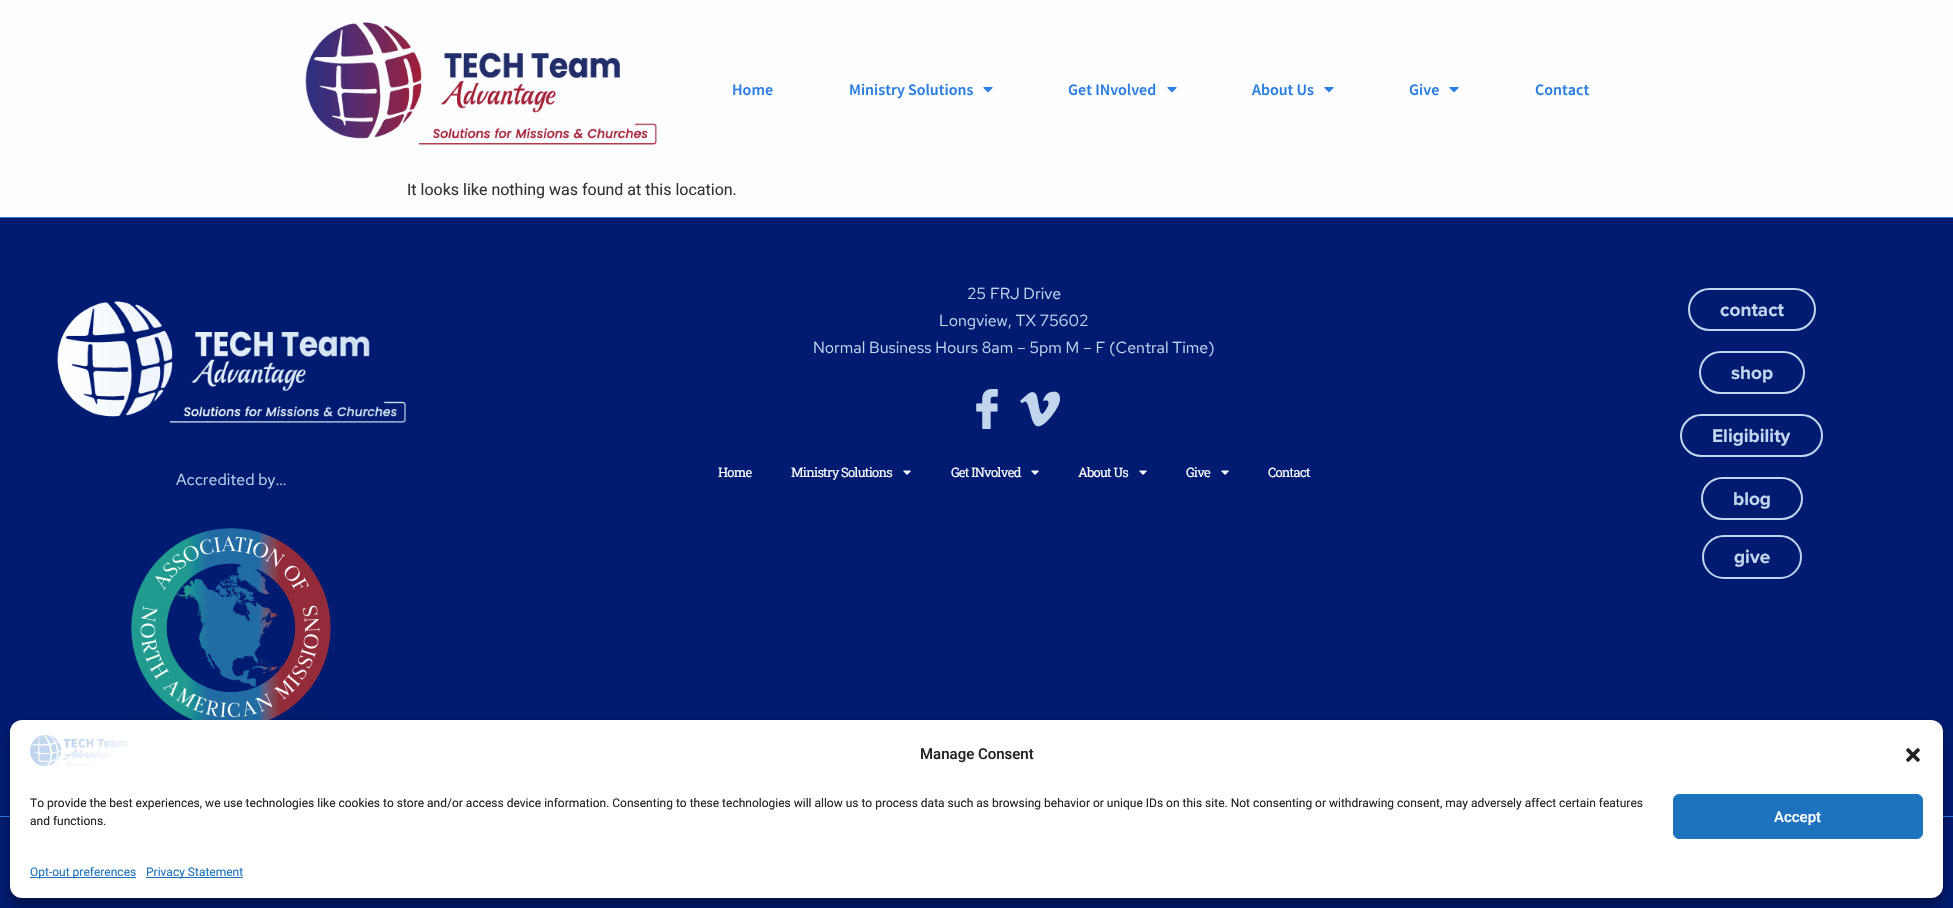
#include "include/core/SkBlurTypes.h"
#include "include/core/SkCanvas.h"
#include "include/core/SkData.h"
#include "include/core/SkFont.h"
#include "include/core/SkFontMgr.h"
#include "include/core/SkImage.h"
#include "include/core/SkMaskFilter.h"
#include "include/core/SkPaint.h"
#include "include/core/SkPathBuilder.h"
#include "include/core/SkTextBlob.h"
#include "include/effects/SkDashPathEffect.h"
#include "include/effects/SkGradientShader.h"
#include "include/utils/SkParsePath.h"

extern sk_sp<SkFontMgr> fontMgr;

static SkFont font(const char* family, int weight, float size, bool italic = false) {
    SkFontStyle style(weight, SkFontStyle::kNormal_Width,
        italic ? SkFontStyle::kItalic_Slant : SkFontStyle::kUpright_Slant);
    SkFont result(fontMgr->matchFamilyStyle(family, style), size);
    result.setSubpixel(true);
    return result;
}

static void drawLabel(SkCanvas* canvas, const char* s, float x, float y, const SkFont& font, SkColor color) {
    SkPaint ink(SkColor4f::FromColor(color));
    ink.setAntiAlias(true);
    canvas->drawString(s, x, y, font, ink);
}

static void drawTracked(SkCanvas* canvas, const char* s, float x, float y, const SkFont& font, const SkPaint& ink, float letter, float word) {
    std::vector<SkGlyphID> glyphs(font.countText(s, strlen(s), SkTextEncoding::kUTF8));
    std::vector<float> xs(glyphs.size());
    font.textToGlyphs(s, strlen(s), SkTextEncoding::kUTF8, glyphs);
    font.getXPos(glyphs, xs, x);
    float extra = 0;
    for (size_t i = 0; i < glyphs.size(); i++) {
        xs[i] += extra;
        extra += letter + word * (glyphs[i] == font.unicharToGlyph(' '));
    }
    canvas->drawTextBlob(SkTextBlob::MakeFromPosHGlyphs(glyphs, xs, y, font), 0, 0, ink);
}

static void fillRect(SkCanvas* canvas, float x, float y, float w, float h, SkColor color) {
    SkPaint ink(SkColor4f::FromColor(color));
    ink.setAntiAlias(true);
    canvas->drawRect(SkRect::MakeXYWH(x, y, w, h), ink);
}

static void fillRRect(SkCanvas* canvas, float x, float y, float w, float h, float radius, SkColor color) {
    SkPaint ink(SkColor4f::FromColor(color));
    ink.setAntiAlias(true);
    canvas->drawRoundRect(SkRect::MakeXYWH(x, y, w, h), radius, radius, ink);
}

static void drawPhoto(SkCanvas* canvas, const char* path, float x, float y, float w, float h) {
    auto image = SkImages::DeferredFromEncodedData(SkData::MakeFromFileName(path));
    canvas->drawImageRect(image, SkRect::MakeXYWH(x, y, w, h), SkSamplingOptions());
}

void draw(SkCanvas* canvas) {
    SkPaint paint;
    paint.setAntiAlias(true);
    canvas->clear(0xFFFBFDFF);
    drawPhoto(canvas, "assets/img1.png", 305, 22, 352, 123);
    SkFont font1 = font("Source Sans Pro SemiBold", 600, 16);
    drawLabel(canvas, "Home", 732, 95, font1, 0xFF2A7DE1);
    drawLabel(canvas, "Ministry Solutions", 849, 95, font1, 0xFF2A7DE1);
    drawPhoto(canvas, "assets/img2.png", 983, 87, 10, 6);
    drawLabel(canvas, "Get INvolved", 1068, 95, font1, 0xFF2A7DE1);
    drawPhoto(canvas, "assets/img2.png", 1167, 87, 10, 6);
    drawLabel(canvas, "About Us", 1252, 95, font1, 0xFF2A7DE1);
    drawPhoto(canvas, "assets/img2.png", 1324, 87, 10, 6);
    drawLabel(canvas, "Give", 1409, 95, font1, 0xFF2A7DE1);
    drawPhoto(canvas, "assets/img2.png", 1449, 87, 10, 6);
    drawLabel(canvas, "Contact", 1535, 95, font1, 0xFF2A7DE1);
    SkFont font2 = font("Roboto", 400, 16);
    drawLabel(canvas, "It looks like nothing was found at this location.", 407, 195, font2, 0xFF333333);
    fillRect(canvas, 0, 218, 1953, 598, 0xFF001B71);
    fillRect(canvas, 0, 217, 1953, 1, 0xFF2A7DE1);
    drawPhoto(canvas, "assets/img3.png", 57, 301, 349, 122);
    SkFont font3 = font("Red Hat Text", 400, 16);
    drawLabel(canvas, "Accredited by…", 176, 485, font3, 0xFFC1D5ED);
    drawPhoto(canvas, "assets/img4.png", 131, 528, 200, 192);
    drawLabel(canvas, "25 FRJ Drive", 967, 299, font3, 0xFFC1D5ED);
    drawLabel(canvas, "Longview, TX 75602", 939, 326, font3, 0xFFC1D5ED);
    drawLabel(canvas, "Normal Business Hours 8am – 5pm M – F (Central Time)", 813, 353, font3, 0xFFC1D5ED);
    drawPhoto(canvas, "assets/img5.png", 976, 389, 22, 40);
    drawPhoto(canvas, "assets/img6.png", 1020, 391, 40, 36);
    SkFont font4 = font("Roboto Slab", 400, 13);
    paint.setColor(0xFFFFFFFF);
    drawTracked(canvas, "Home", 718, 477, font4, paint, -0.75f, 0);
    drawTracked(canvas, "Ministry Solutions", 791, 477, font4, paint, -0.75f, 0);
    drawPhoto(canvas, "assets/img7.png", 903, 470, 8, 5);
    drawTracked(canvas, "Get INvolved", 951, 477, font4, paint, -0.75f, 0);
    drawPhoto(canvas, "assets/img7.png", 1031, 470, 8, 5);
    drawTracked(canvas, "About Us", 1078, 477, font4, paint, -0.75f, 0);
    drawPhoto(canvas, "assets/img7.png", 1139, 470, 8, 5);
    drawTracked(canvas, "Give", 1186, 477, font4, paint, -0.75f, 0);
    drawPhoto(canvas, "assets/img7.png", 1221, 470, 8, 5);
    drawTracked(canvas, "Contact", 1268, 477, font4, paint, -0.75f, 0);
    paint.setStroke(true);
    paint.setStrokeWidth(2);
    paint.setColor(0xFFC1D5ED);
    canvas->drawRoundRect(SkRect::MakeXYWH(1689, 289, 126, 41), 20.5f, 20.5f, paint);
    SkFont font5 = font("Proxima Nova", 700, 19);
    drawLabel(canvas, "contact", 1720, 316, font5, 0xFFC1D5ED);
    canvas->drawRoundRect(SkRect::MakeXYWH(1700, 352, 104, 41), 20.5f, 20.5f, paint);
    drawLabel(canvas, "shop", 1731, 379, font5, 0xFFC1D5ED);
    canvas->drawRoundRect(SkRect::MakeXYWH(1681, 415, 141, 41), 20.5f, 20.5f, paint);
    drawLabel(canvas, "Eligibility", 1712, 442, font5, 0xFFC1D5ED);
    canvas->drawRoundRect(SkRect::MakeXYWH(1702, 478, 100, 41), 20.5f, 20.5f, paint);
    drawLabel(canvas, "blog", 1733, 505, font5, 0xFFC1D5ED);
    canvas->drawRoundRect(SkRect::MakeXYWH(1703, 536, 98, 42), 21, 21, paint);
    drawLabel(canvas, "give", 1734, 563, font5, 0xFFC1D5ED);
    fillRect(canvas, 0, 817, 1953, 91, 0xFF001B71);
    fillRect(canvas, 0, 816, 1953, 1, 0xFF2A7DE1);
    paint.setStroke(false);
    paint.setColor(0x3B000000);
    paint.setMaskFilter(SkMaskFilter::MakeBlur(kNormal_SkBlurStyle, 3));
    canvas->drawRoundRect(SkRect::MakeXYWH(10, 726, 1933, 178), 12, 12, paint);
    paint.setMaskFilter(nullptr);
    paint.setColor(0x30000000);
    paint.setMaskFilter(SkMaskFilter::MakeBlur(kNormal_SkBlurStyle, 10));
    canvas->drawRoundRect(SkRect::MakeXYWH(10, 730, 1933, 178), 12, 12, paint);
    paint.setMaskFilter(nullptr);
    fillRRect(canvas, 10, 720, 1933, 178, 12, 0xFFFFFFFF);
    drawPhoto(canvas, "assets/img8.png", 30, 735, 98, 32);
    SkFont font6 = font("Roboto", 500, 15);
    drawLabel(canvas, "Manage Consent", 920, 759, font6, 0xFF222222);
    drawPhoto(canvas, "assets/img9.png", 1906, 748, 14, 14);
    SkFont font7 = font("Roboto", 400, 12);
    drawLabel(canvas, "To provide the best experiences, we use technologies like cookies to store and/or access device information. Consenting to these technologies will allow us to process data such as browsing behavior or unique IDs on this site. Not consenting or withdrawing consent, may adversely affect certain features", 30, 807, font7, 0xFF222222);
    drawLabel(canvas, "and functions.", 30, 825, font7, 0xFF222222);
    paint.setColor(0xFF1E73BE);
    canvas->drawRoundRect(SkRect::MakeXYWH(1673.5f, 794.5f, 249, 44), 5.5f, 5.5f, paint);
    paint.setStroke(true);
    paint.setStrokeWidth(1);
    canvas->drawRoundRect(SkRect::MakeXYWH(1673.5f, 794.5f, 249, 44), 5.5f, 5.5f, paint);
    drawLabel(canvas, "Accept", 1774, 822, font6, 0xFFFFFFFF);
    fillRect(canvas, 30, 877, 106, 1, 0xFF1E73BE);
    drawLabel(canvas, "Opt-out preferences", 30, 876, font7, 0xFF1E73BE);
    fillRect(canvas, 146, 877, 97, 1, 0xFF1E73BE);
    drawLabel(canvas, "Privacy Statement", 146, 876, font7, 0xFF1E73BE);
}
